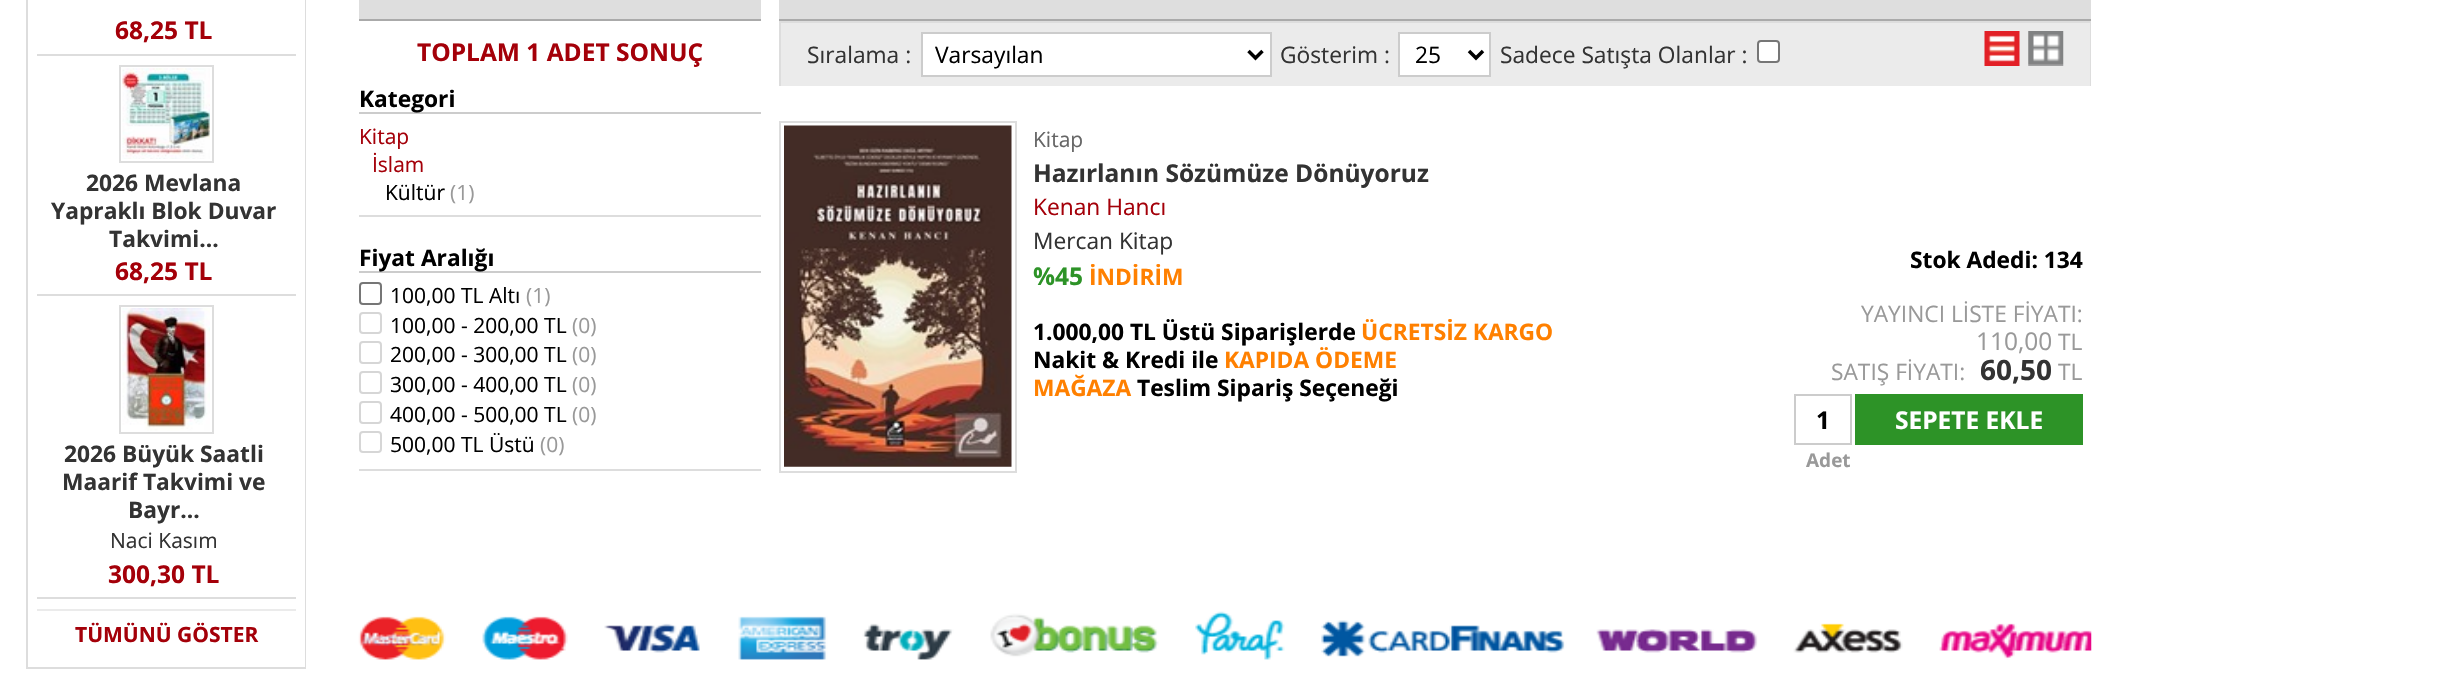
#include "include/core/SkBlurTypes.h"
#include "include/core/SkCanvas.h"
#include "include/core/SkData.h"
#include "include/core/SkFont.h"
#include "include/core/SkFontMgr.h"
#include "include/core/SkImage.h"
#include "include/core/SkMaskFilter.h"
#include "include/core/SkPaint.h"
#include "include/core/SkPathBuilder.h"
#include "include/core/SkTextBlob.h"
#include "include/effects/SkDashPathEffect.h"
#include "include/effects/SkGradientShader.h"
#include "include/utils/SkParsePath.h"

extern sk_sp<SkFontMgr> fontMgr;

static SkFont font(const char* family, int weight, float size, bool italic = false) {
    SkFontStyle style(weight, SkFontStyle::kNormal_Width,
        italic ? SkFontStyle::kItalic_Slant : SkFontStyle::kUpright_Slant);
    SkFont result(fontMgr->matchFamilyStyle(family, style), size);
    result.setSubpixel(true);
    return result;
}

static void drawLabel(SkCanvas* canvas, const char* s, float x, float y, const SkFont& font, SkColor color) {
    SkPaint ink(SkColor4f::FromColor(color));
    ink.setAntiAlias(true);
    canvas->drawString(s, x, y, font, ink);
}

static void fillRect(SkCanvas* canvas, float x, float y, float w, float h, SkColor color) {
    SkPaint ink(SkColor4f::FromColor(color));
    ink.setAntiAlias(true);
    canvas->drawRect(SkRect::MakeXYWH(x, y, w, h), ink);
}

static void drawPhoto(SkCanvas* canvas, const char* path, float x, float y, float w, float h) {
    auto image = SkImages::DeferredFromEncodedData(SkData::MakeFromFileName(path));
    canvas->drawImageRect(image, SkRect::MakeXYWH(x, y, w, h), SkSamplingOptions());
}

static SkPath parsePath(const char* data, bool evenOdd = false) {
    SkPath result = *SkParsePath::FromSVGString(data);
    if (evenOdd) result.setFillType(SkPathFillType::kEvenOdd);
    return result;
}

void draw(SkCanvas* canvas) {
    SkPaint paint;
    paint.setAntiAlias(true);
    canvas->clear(0xFFFFFFFF);
    fillRect(canvas, 305, 0, 1, 669, 0xFFDDDDDD);
    fillRect(canvas, 26, 667, 280, 2, 0xFFDDDDDD);
    fillRect(canvas, 26, 0, 2, 669, 0xFFDDDDDD);
    fillRect(canvas, 37, 54, 259, 2, 0xFFDDDDDD);
    SkFont font1 = font("Open Sans", 700, 24.5f);
    drawLabel(canvas, "68,25 TL", 115, 39, font1, 0xFFA40009);
    fillRect(canvas, 37, 294, 259, 2, 0xFFDDDDDD);
    paint.setStroke(true);
    paint.setStrokeWidth(2);
    paint.setColor(0xFFDDDDDD);
    canvas->drawRect(SkRect::MakeXYWH(120, 66, 93, 96), paint);
    drawPhoto(canvas, "assets/img1.png", 122, 68, 88, 91);
    SkFont font2 = font("Open Sans", 700, 22.75f);
    drawLabel(canvas, "2026 Mevlana", 86, 191, font2, 0xFF333333);
    drawLabel(canvas, "Yapraklı Blok Duvar", 51, 219, font2, 0xFF333333);
    drawLabel(canvas, "Takvimi...", 109, 247, font2, 0xFF333333);
    drawLabel(canvas, "68,25 TL", 115, 280, font1, 0xFFA40009);
    fillRect(canvas, 37, 597, 259, 2, 0xFFDDDDDD);
    canvas->drawRect(SkRect::MakeXYWH(120, 306, 93, 127), paint);
    drawPhoto(canvas, "assets/img2.png", 122, 308, 88, 123);
    drawLabel(canvas, "2026 Büyük Saatli", 64, 462, font2, 0xFF333333);
    drawLabel(canvas, "Maarif Takvimi ve", 62, 490, font2, 0xFF333333);
    drawLabel(canvas, "Bayr...", 128, 518, font2, 0xFF333333);
    SkFont font3 = font("Open Sans", 400, 21);
    drawLabel(canvas, "Naci Kasım", 110, 548, font3, 0xFF333333);
    drawLabel(canvas, "300,30 TL", 108, 583, font1, 0xFFA40009);
    fillRect(canvas, 37, 609, 259, 2, 0xFFEBEBEB);
    SkFont font4 = font("Open Sans", 700, 21);
    drawLabel(canvas, "TÜMÜNÜ GÖSTER", 75, 642, font4, 0xFFA40009);
    fillRect(canvas, 359, 0, 402, 19, 0xFFDEDEDE);
    fillRect(canvas, 359, 19, 402, 2, 0xFFAAAAAA);
    drawLabel(canvas, "TOPLAM 1 ADET SONUÇ", 417, 61, font1, 0xFFA40009);
    fillRect(canvas, 359, 112, 402, 2, 0xFFCCCCCC);
    drawLabel(canvas, "Kategori", 359, 107, font2, 0xFF000000);
    fillRect(canvas, 359, 215, 402, 2, 0xFFDDDDDD);
    drawLabel(canvas, "Kitap", 359, 144, font3, 0xFFA40009);
    drawLabel(canvas, "İslam", 372, 172, font3, 0xFFA40009);
    drawLabel(canvas, "Kültür", 385, 200, font3, 0xFF000000);
    drawLabel(canvas, "(1)", 450, 200, font3, 0xFF999999);
    fillRect(canvas, 359, 271, 402, 2, 0xFFCCCCCC);
    drawLabel(canvas, "Fiyat Aralığı", 359, 266, font2, 0xFF000000);
    fillRect(canvas, 359, 469, 402, 2, 0xFFDDDDDD);
    paint.setColor(0xFF767676);
    canvas->drawRoundRect(SkRect::MakeXYWH(360, 283, 21, 21), 3, 3, paint);
    drawLabel(canvas, "100,00 TL Altı", 390, 303, font3, 0xFF000000);
    drawLabel(canvas, "(1)", 526, 303, font3, 0xFF999999);
    paint.setColor(0xFFD6D6D6);
    canvas->drawRoundRect(SkRect::MakeXYWH(360, 313, 21, 20), 3, 3, paint);
    drawLabel(canvas, "100,00 - 200,00 TL", 390, 333, font3, 0xFF000000);
    drawLabel(canvas, "(0)", 572, 333, font3, 0xFF999999);
    canvas->drawRoundRect(SkRect::MakeXYWH(360, 342, 21, 21), 3, 3, paint);
    drawLabel(canvas, "200,00 - 300,00 TL", 390, 362, font3, 0xFF000000);
    drawLabel(canvas, "(0)", 572, 362, font3, 0xFF999999);
    canvas->drawRoundRect(SkRect::MakeXYWH(360, 372, 21, 21), 3, 3, paint);
    drawLabel(canvas, "300,00 - 400,00 TL", 390, 392, font3, 0xFF000000);
    drawLabel(canvas, "(0)", 572, 392, font3, 0xFF999999);
    canvas->drawRoundRect(SkRect::MakeXYWH(360, 402, 21, 21), 3, 3, paint);
    drawLabel(canvas, "400,00 - 500,00 TL", 390, 422, font3, 0xFF000000);
    drawLabel(canvas, "(0)", 572, 422, font3, 0xFF999999);
    canvas->drawRoundRect(SkRect::MakeXYWH(360, 432, 21, 20), 3, 3, paint);
    drawLabel(canvas, "500,00 TL Üstü", 390, 452, font3, 0xFF000000);
    drawLabel(canvas, "(0)", 540, 452, font3, 0xFF999999);
    fillRect(canvas, 779, 0, 1312, 19, 0xFFDEDEDE);
    fillRect(canvas, 779, 19, 1312, 2, 0xFFAAAAAA);
    fillRect(canvas, 781, 23, 1309, 63, 0xFFEBEBEB);
    fillRect(canvas, 779, 21, 1312, 2, 0xFFDDDDDD);
    fillRect(canvas, 2090, 21, 1, 65, 0xFFDDDDDD);
    fillRect(canvas, 779, 21, 2, 65, 0xFFDDDDDD);
    SkFont font5 = font("Open Sans", 400, 22.75f);
    drawLabel(canvas, "Sıralama :", 807, 63, font5, 0xFF333333);
    paint.setStroke(false);
    paint.setColor(0xFFFFFFFF);
    canvas->drawRect(SkRect::MakeXYWH(922, 33, 349, 43), paint);
    paint.setStroke(true);
    paint.setColor(0xFFCCCCCC);
    canvas->drawRect(SkRect::MakeXYWH(922, 33, 349, 43), paint);
    paint.setStrokeWidth(3.5f);
    paint.setColor(0xFF000000);
    canvas->drawPath(parsePath("M1248.5 51L1255.5 58L1262.5 51"), paint);
    drawLabel(canvas, "Varsayılan", 935, 63, font5, 0xFF000000);
    drawLabel(canvas, "Gösterim :", 1280, 63, font5, 0xFF333333);
    paint.setStroke(false);
    paint.setColor(0xFFFFFFFF);
    canvas->drawRect(SkRect::MakeXYWH(1399, 33, 91, 43), paint);
    paint.setStroke(true);
    paint.setStrokeWidth(2);
    paint.setColor(0xFFCCCCCC);
    canvas->drawRect(SkRect::MakeXYWH(1399, 33, 91, 43), paint);
    paint.setStrokeWidth(3.5f);
    paint.setColor(0xFF000000);
    canvas->drawPath(parsePath("M1469 51L1476 58L1483 51"), paint);
    drawLabel(canvas, "25", 1415, 63, font5, 0xFF000000);
    drawLabel(canvas, "Sadece Satışta Olanlar :", 1500, 63, font5, 0xFF333333);
    paint.setStroke(false);
    paint.setColor(0xFFFFFFFF);
    canvas->drawRoundRect(SkRect::MakeXYWH(1758, 41, 21, 21), 3, 3, paint);
    paint.setStroke(true);
    paint.setStrokeWidth(2);
    paint.setColor(0xFF767676);
    canvas->drawRoundRect(SkRect::MakeXYWH(1758, 41, 21, 21), 3, 3, paint);
    drawPhoto(canvas, "assets/img3.png", 1984, 31, 36, 35);
    drawPhoto(canvas, "assets/img4.png", 2028, 31, 36, 35);
    paint.setColor(0xFFDDDDDD);
    canvas->drawRect(SkRect::MakeXYWH(780, 122, 236, 350), paint);
    drawPhoto(canvas, "assets/img5.png", 784, 125, 228, 342);
    drawLabel(canvas, "Kitap", 1033, 147, font3, 0xFF666666);
    drawLabel(canvas, "Hazırlanın Sözümüze Dönüyoruz", 1033, 182, font1, 0xFF333333);
    drawLabel(canvas, "Kenan Hancı", 1033, 215, font5, 0xFFA40009);
    drawLabel(canvas, "Mercan Kitap", 1033, 249, font5, 0xFF333333);
    drawLabel(canvas, "%45", 1033, 285, font1, 0xFF2D9327);
    drawLabel(canvas, "İNDİRİM", 1089, 285, font2, 0xFFFF8000);
    drawLabel(canvas, "1.000,00 TL Üstü Siparişlerde", 1033, 340, font2, 0xFF000000);
    drawLabel(canvas, "ÜCRETSİZ KARGO", 1361, 340, font2, 0xFFFF8000);
    drawLabel(canvas, "Nakit & Kredi ile", 1033, 368, font2, 0xFF000000);
    drawLabel(canvas, "KAPIDA ÖDEME", 1224, 368, font2, 0xFFFF8000);
    drawLabel(canvas, "MAĞAZA", 1033, 396, font2, 0xFFFF8000);
    drawLabel(canvas, "Teslim Sipariş Seçeneği", 1137, 396, font2, 0xFF000000);
    drawLabel(canvas, "Stok Adedi: 134", 1910, 268, font2, 0xFF000000);
    drawLabel(canvas, "YAYINCI LİSTE FİYATI:", 1861, 322, font5, 0xFF999999);
    SkFont font6 = font("Open Sans", 400, 24.5f);
    drawLabel(canvas, "110,00", 1976, 350, font6, 0xFF999999);
    drawLabel(canvas, "TL", 2058, 350, font5, 0xFF999999);
    drawLabel(canvas, "SATIŞ FİYATI:", 1831, 380, font5, 0xFF999999);
    SkFont font7 = font("Open Sans", 700, 28);
    drawLabel(canvas, "60,50", 1980, 380, font7, 0xFF333333);
    drawLabel(canvas, "TL", 2058, 380, font5, 0xFF999999);
    paint.setColor(0xFFCCCCCC);
    canvas->drawRect(SkRect::MakeXYWH(1795, 395, 56, 49), paint);
    drawLabel(canvas, "1", 1816, 429, font1, 0xFF000000);
    SkFont font8 = font("Open Sans", 700, 19);
    drawLabel(canvas, "Adet", 1806, 467, font8, 0xFF999999);
    fillRect(canvas, 1855, 394, 228, 51, 0xFF2D9327);
    drawLabel(canvas, "SEPETE EKLE", 1895, 429, font1, 0xFFFFFFFF);
    drawPhoto(canvas, "assets/img6.png", 358, 611, 1734, 49);
}
